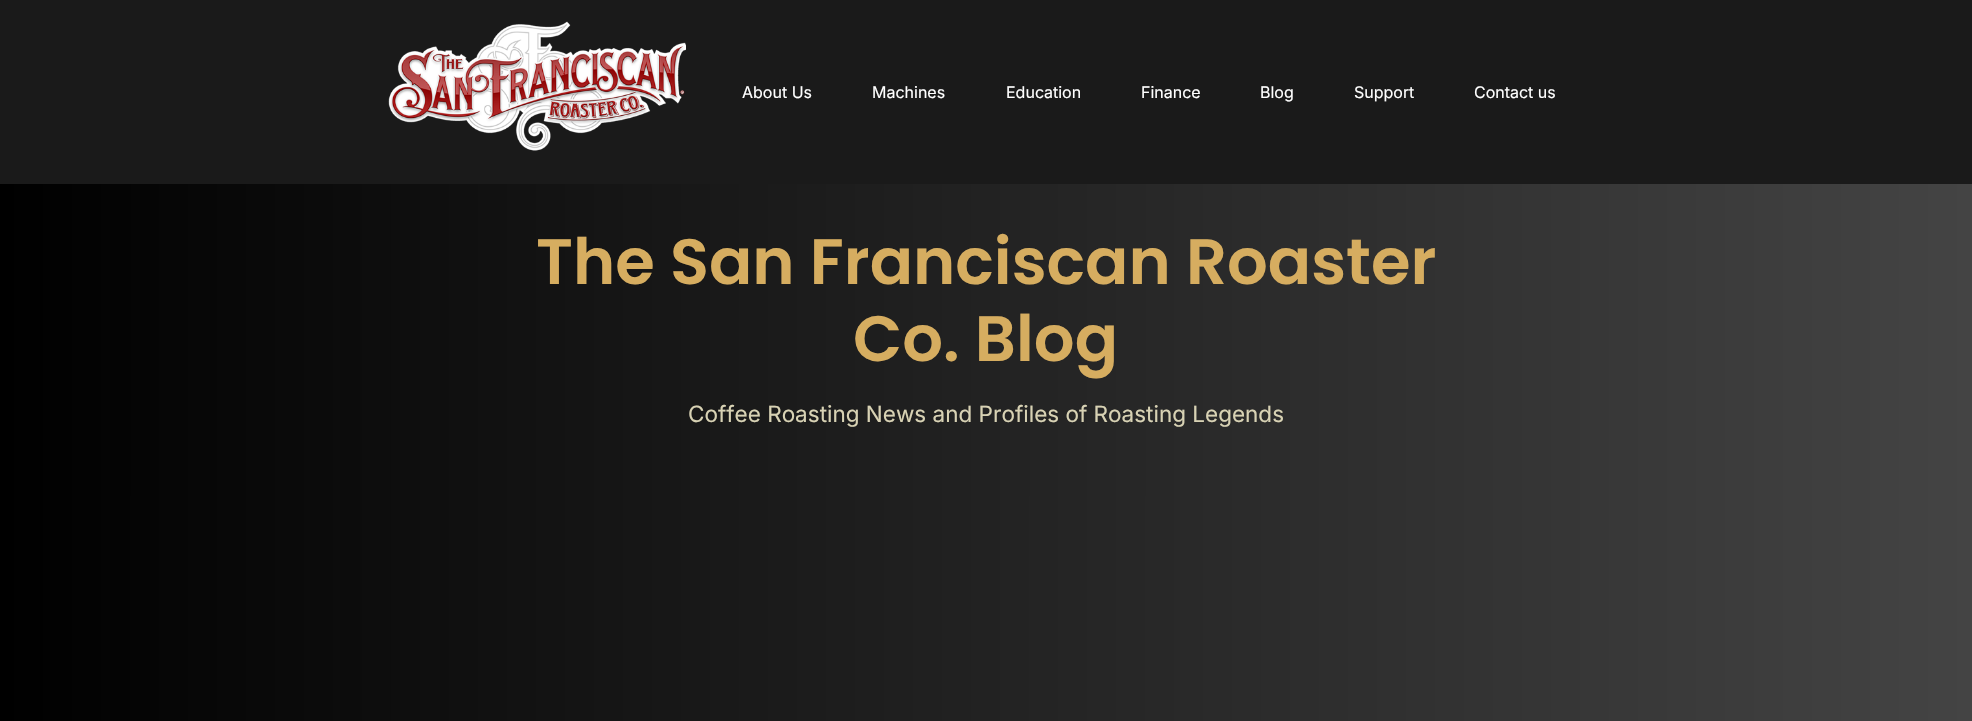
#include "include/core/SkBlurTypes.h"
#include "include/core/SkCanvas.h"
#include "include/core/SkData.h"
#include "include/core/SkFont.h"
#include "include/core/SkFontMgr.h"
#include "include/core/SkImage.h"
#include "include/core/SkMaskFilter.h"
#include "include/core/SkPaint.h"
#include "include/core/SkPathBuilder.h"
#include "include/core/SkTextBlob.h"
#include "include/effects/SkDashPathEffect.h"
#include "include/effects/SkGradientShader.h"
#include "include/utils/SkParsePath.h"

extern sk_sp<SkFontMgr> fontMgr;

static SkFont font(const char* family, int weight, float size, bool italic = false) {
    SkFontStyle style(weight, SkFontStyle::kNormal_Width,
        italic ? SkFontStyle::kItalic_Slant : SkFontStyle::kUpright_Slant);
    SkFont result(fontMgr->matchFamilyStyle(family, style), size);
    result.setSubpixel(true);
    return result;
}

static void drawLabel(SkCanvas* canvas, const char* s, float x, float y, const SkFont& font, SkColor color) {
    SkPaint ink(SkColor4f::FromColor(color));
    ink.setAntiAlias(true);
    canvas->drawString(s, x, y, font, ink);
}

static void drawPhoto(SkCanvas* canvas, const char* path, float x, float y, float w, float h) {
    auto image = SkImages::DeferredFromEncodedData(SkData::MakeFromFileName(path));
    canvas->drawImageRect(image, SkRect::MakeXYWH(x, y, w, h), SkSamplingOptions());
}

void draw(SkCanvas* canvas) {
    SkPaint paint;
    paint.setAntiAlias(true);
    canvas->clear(0xFF1A1A1A);
    drawPhoto(canvas, "assets/img1.png", 388, 21, 298, 130);
    SkFont font1 = font("Inter", 400, 16);
    drawLabel(canvas, "About Us", 742, 98, font1, 0xFFFFFFFF);
    drawLabel(canvas, "Machines", 872, 98, font1, 0xFFFFFFFF);
    drawLabel(canvas, "Education", 1006, 98, font1, 0xFFFFFFFF);
    drawLabel(canvas, "Finance", 1141, 98, font1, 0xFFFFFFFF);
    drawLabel(canvas, "Blog", 1260, 98, font1, 0xFFFFFFFF);
    drawLabel(canvas, "Support", 1354, 98, font1, 0xFFFFFFFF);
    drawLabel(canvas, "Contact us", 1474, 98, font1, 0xFFFFFFFF);
    {
        const SkColor colors[] = {0xFF000000, 0xFF444444};
        const float stops[] = {0, 1};
        const SkPoint ends[] = {{0, 340}, {1972, 340}};
        paint.setShader(SkGradientShader::MakeLinear(ends, colors, stops, 2, SkTileMode::kClamp));
        paint.setAlpha(255);
    }
    canvas->drawRect(SkRect::MakeXYWH(0, 184, 1972, 312), paint);
    SkFont font2 = font("Poppins", 600, 64);
    drawLabel(canvas, "The San Franciscan Roaster", 536, 284, font2, 0xFFD6AD60);
    drawLabel(canvas, "Co. Blog", 853, 361, font2, 0xFFD6AD60);
    SkFont font3 = font("Inter", 400, 22.5f);
    drawLabel(canvas, "Coffee Roasting News and Profiles of Roasting Legends", 688, 422, font3, 0xFFD8D2B4);
    {
        const SkColor colors[] = {0xFF000000, 0xFF444444};
        const float stops[] = {0, 1};
        const SkPoint ends[] = {{0, 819}, {1972, 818}};
        paint.setShader(SkGradientShader::MakeLinear(ends, colors, stops, 2, SkTileMode::kClamp));
        paint.setAlpha(255);
    }
    canvas->drawRect(SkRect::MakeXYWH(0, 496, 1972, 225), paint);
}
